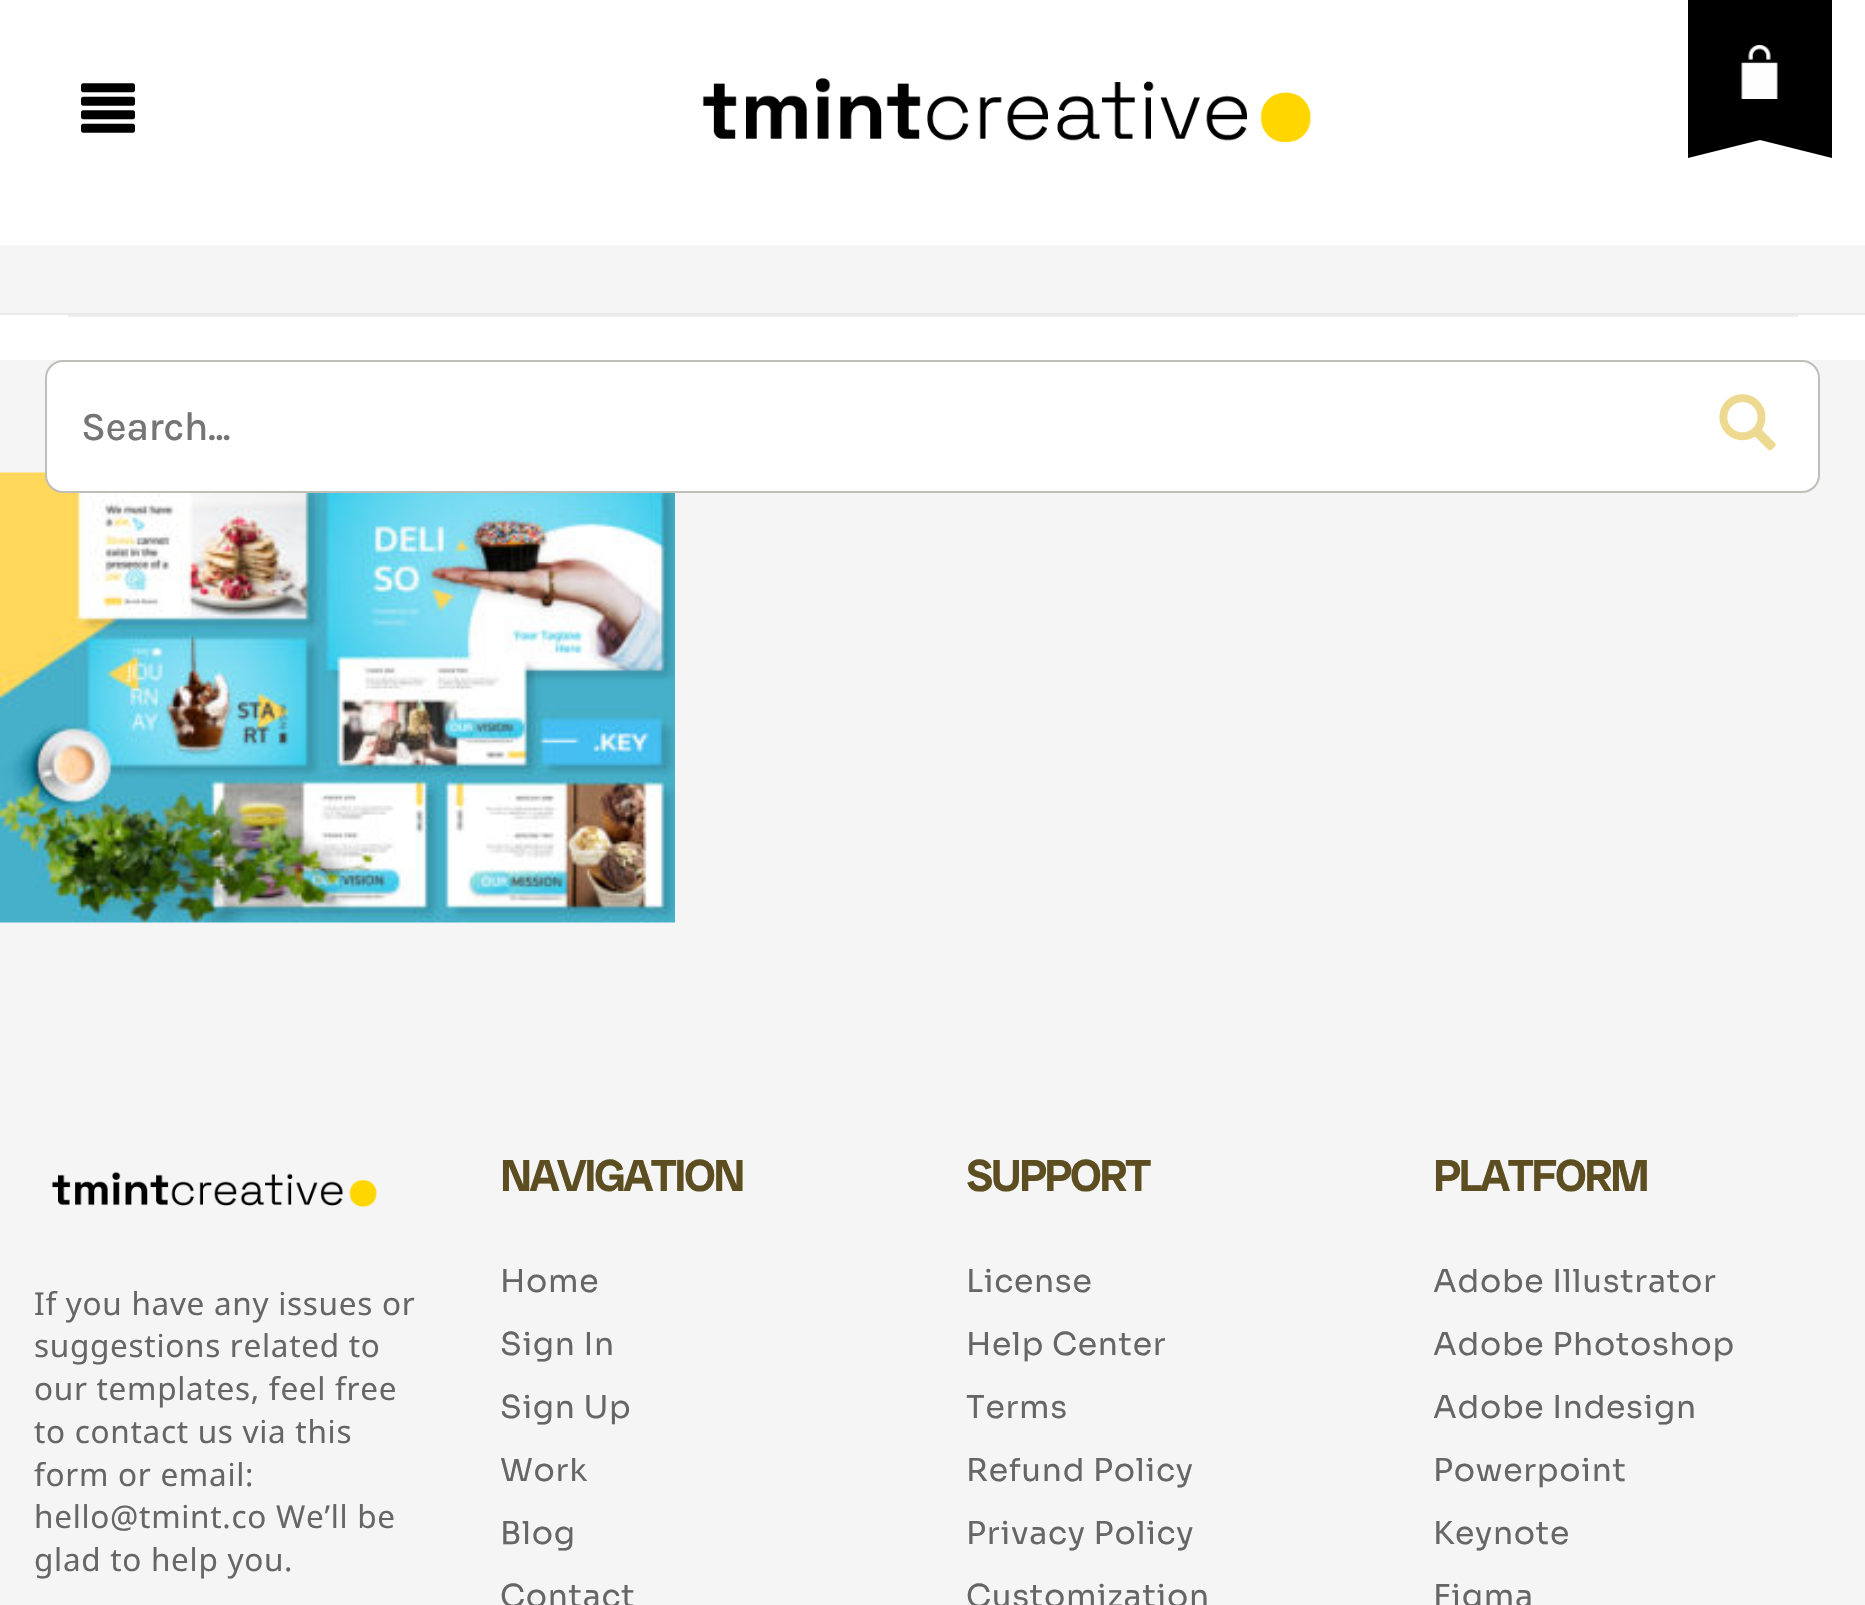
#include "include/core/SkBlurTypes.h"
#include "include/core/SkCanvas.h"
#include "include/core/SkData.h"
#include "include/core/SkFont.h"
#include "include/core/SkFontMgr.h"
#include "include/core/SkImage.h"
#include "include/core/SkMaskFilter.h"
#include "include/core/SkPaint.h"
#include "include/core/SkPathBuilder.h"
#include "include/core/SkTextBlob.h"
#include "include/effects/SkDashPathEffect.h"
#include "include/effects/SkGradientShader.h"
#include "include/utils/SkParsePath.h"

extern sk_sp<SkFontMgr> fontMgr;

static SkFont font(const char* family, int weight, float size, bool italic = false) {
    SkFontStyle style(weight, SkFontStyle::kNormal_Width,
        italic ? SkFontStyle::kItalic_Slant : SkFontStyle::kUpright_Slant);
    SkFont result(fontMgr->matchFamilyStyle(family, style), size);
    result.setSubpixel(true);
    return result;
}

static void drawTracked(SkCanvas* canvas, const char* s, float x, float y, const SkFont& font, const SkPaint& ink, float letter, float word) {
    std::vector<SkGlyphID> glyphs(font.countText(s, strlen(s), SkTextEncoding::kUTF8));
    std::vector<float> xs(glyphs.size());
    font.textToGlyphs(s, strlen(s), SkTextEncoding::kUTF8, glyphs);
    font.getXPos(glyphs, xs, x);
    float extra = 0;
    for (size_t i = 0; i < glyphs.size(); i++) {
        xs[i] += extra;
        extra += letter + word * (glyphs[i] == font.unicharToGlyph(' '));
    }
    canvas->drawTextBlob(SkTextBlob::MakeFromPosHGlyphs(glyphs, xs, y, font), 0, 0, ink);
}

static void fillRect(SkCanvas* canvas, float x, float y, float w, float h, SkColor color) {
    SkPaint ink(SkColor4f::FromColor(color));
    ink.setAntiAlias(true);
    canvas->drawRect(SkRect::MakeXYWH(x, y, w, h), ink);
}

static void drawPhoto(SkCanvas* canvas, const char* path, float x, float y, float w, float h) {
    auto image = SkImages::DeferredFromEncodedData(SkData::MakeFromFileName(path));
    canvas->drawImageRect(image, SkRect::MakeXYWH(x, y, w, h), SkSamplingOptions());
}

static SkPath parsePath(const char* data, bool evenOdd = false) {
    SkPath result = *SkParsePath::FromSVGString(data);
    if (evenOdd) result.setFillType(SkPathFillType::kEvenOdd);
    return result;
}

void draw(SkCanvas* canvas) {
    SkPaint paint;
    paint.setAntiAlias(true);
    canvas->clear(0xFFF5F5F5);
    fillRect(canvas, 0, 0, 1865, 245, 0xFFFFFFFF);
    drawPhoto(canvas, "assets/img1.png", 81, 83, 54, 50);
    drawPhoto(canvas, "assets/img2.png", 702, 78, 609, 64);
    fillRect(canvas, 1688, 0, 144, 140, 0xFF000000);
    drawPhoto(canvas, "assets/img3.png", 1741, 45, 37, 54);
    paint.setColor(0xFF000000);
    canvas->drawPath(parsePath("M1832 122V158L1760 140Z"), paint);
    canvas->drawPath(parsePath("M1688 158V122L1760 140Z"), paint);
    fillRect(canvas, 0, 315, 1865, 45, 0xFFFFFFFF);
    fillRect(canvas, 0, 313, 1865, 2, 0xFFEAEAEA);
    fillRect(canvas, 68, 315, 1730, 2, 0xFFEEEEEE);
    drawPhoto(canvas, "assets/img5.png", 0, 472, 675, 451);
    paint.setColor(0xFFFFFFFF);
    canvas->drawRoundRect(SkRect::MakeXYWH(46, 361, 1773, 131), 17, 17, paint);
    paint.setStroke(true);
    paint.setStrokeWidth(2);
    paint.setColor(0xFFC0BEB9);
    canvas->drawRoundRect(SkRect::MakeXYWH(46, 361, 1773, 131), 17, 17, paint);
    SkFont font1 = font("Karla", 500, 40.5f);
    paint.setStroke(false);
    paint.setColor(0xFF757575);
    drawTracked(canvas, "Search...", 81, 440, font1, paint, -0.5f, 0);
    drawPhoto(canvas, "assets/img4.png", 1719, 394, 57, 57);
    drawPhoto(canvas, "assets/img6.png", 51, 1171, 326, 36);
    SkFont font2 = font("Noto Sans", 400, 31.5f);
    paint.setColor(0xFF666666);
    drawTracked(canvas, "If you have any issues or", 34, 1315, font2, paint, 0.7f, 0);
    drawTracked(canvas, "suggestions related to", 34, 1357, font2, paint, 0.7f, 0);
    drawTracked(canvas, "our templates, feel free", 34, 1400, font2, paint, 0.7f, 0);
    drawTracked(canvas, "to contact us via this", 34, 1443, font2, paint, 0.7f, 0);
    drawTracked(canvas, "form or email:", 34, 1486, font2, paint, 0.7f, 0);
    drawTracked(canvas, "hello@tmint.co We’ll be", 34, 1528, font2, paint, 0.7f, 0);
    drawTracked(canvas, "glad to help you.", 34, 1571, font2, paint, 0.7f, 0);
    SkFont font3 = font("Radio Canada Big", 600, 45);
    paint.setColor(0xFF5C4E21);
    drawTracked(canvas, "NAVIGATION", 500, 1191, font3, paint, -2.75f, 0);
    SkFont font4 = font("Sora", 400, 31.5f);
    paint.setColor(0xFF666666);
    drawTracked(canvas, "Home", 500, 1292, font4, paint, 0.7f, 0);
    drawTracked(canvas, "Sign In", 500, 1355, font4, paint, 0.7f, 0);
    drawTracked(canvas, "Sign Up", 500, 1418, font4, paint, 0.7f, 0);
    drawTracked(canvas, "Work", 500, 1481, font4, paint, 0.7f, 0);
    drawTracked(canvas, "Blog", 500, 1544, font4, paint, 0.7f, 0);
    drawTracked(canvas, "Contact", 500, 1607, font4, paint, 0.7f, 0);
    paint.setColor(0xFF5C4E21);
    drawTracked(canvas, "SUPPORT", 966, 1191, font3, paint, -2.75f, 0);
    paint.setColor(0xFF666666);
    drawTracked(canvas, "License", 966, 1292, font4, paint, 0.7f, 0);
    drawTracked(canvas, "Help Center", 966, 1355, font4, paint, 0.7f, 0);
    drawTracked(canvas, "Terms", 966, 1418, font4, paint, 0.7f, 0);
    drawTracked(canvas, "Refund Policy", 966, 1481, font4, paint, 0.7f, 0);
    drawTracked(canvas, "Privacy Policy", 966, 1544, font4, paint, 0.7f, 0);
    drawTracked(canvas, "Customization", 966, 1607, font4, paint, 0.7f, 0);
    paint.setColor(0xFF5C4E21);
    drawTracked(canvas, "PLATFORM", 1433, 1191, font3, paint, -2.75f, 0);
    paint.setColor(0xFF666666);
    drawTracked(canvas, "Adobe Illustrator", 1433, 1292, font4, paint, 0.7f, 0);
    drawTracked(canvas, "Adobe Photoshop", 1433, 1355, font4, paint, 0.7f, 0);
    drawTracked(canvas, "Adobe Indesign", 1433, 1418, font4, paint, 0.7f, 0);
    drawTracked(canvas, "Powerpoint", 1433, 1481, font4, paint, 0.7f, 0);
    drawTracked(canvas, "Keynote", 1433, 1544, font4, paint, 0.7f, 0);
    drawTracked(canvas, "Figma", 1433, 1607, font4, paint, 0.7f, 0);
}
